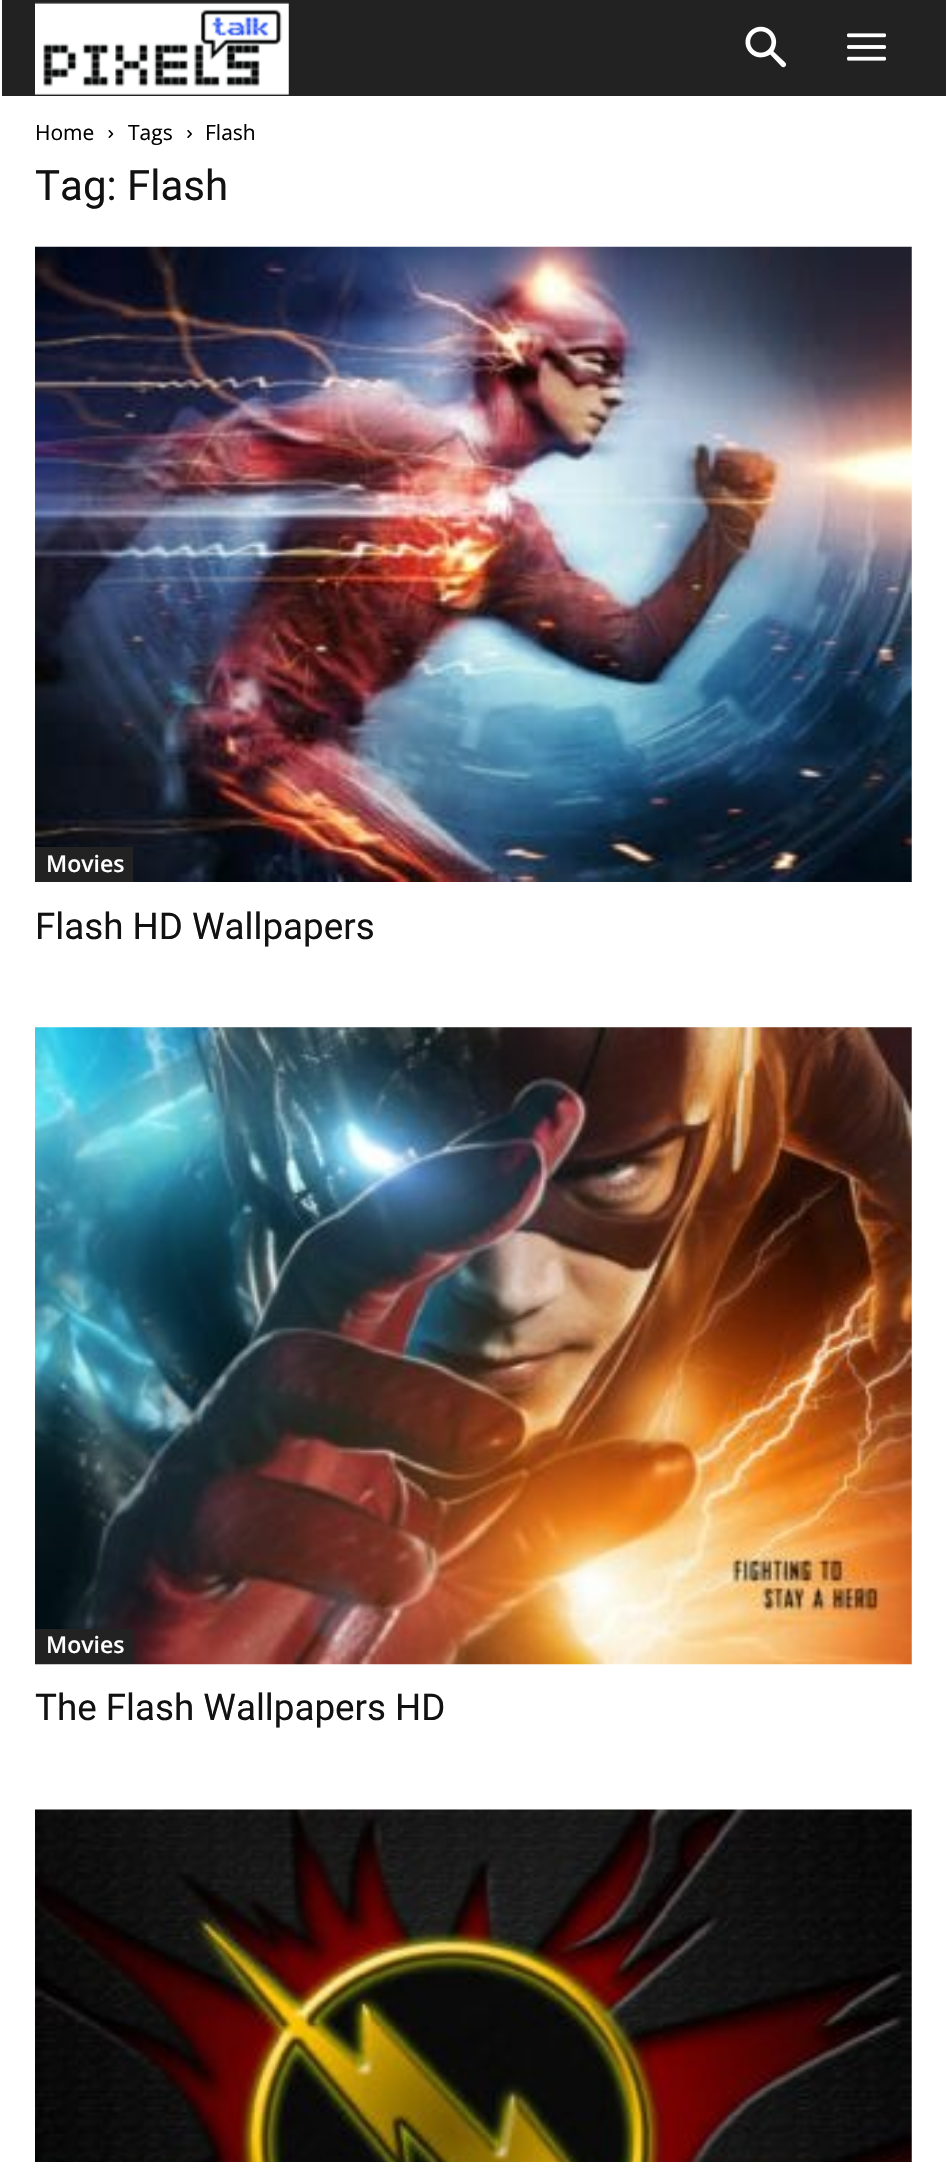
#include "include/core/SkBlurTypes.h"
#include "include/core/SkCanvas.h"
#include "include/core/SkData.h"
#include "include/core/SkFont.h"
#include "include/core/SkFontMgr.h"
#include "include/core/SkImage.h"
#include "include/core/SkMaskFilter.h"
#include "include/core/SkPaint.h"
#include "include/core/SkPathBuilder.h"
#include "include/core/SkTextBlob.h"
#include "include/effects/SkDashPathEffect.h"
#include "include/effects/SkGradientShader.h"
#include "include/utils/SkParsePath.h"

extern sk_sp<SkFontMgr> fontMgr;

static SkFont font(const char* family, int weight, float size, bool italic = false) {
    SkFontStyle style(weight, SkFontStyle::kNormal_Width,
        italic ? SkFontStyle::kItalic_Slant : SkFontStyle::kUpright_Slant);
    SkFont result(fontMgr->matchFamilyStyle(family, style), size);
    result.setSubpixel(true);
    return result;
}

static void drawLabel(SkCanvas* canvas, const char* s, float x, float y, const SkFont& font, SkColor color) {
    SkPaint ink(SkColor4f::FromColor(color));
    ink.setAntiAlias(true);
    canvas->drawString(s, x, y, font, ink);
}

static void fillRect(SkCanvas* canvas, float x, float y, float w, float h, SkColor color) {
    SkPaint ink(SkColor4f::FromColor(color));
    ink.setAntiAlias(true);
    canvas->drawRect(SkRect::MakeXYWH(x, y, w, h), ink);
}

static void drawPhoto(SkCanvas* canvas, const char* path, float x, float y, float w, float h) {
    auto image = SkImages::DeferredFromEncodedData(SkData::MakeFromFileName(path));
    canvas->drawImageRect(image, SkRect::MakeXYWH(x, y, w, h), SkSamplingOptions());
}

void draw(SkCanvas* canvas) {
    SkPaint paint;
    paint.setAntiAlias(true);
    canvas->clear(0xFFFFFFFF);
    fillRect(canvas, 2, 0, 944, 96, 0xFF222222);
    drawPhoto(canvas, "assets/img1.png", 35, 2, 254, 93);
    drawPhoto(canvas, "assets/img2.png", 745, 26, 42, 42);
    drawPhoto(canvas, "assets/img3.png", 847, 33, 39, 28);
    SkFont font1 = font("Open Sans", 400, 21);
    drawLabel(canvas, "Home", 35, 140, font1, 0xFF000000);
    drawPhoto(canvas, "assets/img4.png", 108, 130, 6, 8);
    drawLabel(canvas, "Tags", 128, 140, font1, 0xFF000000);
    drawPhoto(canvas, "assets/img5.png", 187, 130, 5, 8);
    drawLabel(canvas, "Flash", 205, 140, font1, 0xFF000000);
    SkFont font2 = font("Roboto", 400, 42);
    drawLabel(canvas, "Tag: Flash", 35, 200, font2, 0xFF111111);
    drawPhoto(canvas, "assets/img6.png", 35, 246, 877, 636);
    fillRect(canvas, 35, 847, 98, 35, 0xFF222222);
    SkFont font3 = font("Open Sans", 600, 23);
    drawLabel(canvas, "Movies", 46, 872, font3, 0xFFFFFFFF);
    SkFont font4 = font("Roboto", 400, 36.75f);
    drawLabel(canvas, "Flash HD Wallpapers", 35, 939, font4, 0xFF111111);
    drawPhoto(canvas, "assets/img7.png", 35, 1027, 877, 638);
    fillRect(canvas, 35, 1629, 98, 35, 0xFF222222);
    drawLabel(canvas, "Movies", 46, 1653, font3, 0xFFFFFFFF);
    drawLabel(canvas, "The Flash Wallpapers HD", 35, 1720, font4, 0xFF111111);
    drawPhoto(canvas, "assets/img8.png", 35, 1809, 877, 353);
}
